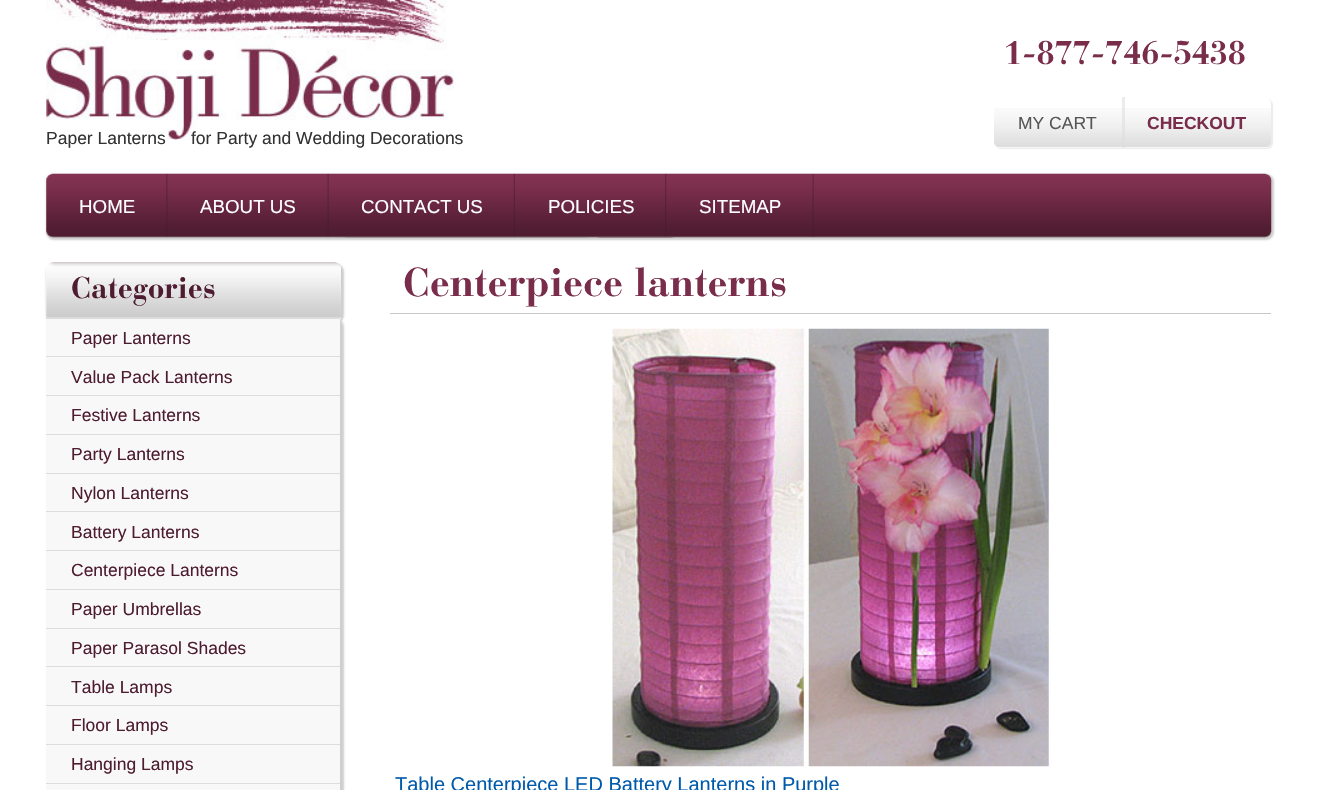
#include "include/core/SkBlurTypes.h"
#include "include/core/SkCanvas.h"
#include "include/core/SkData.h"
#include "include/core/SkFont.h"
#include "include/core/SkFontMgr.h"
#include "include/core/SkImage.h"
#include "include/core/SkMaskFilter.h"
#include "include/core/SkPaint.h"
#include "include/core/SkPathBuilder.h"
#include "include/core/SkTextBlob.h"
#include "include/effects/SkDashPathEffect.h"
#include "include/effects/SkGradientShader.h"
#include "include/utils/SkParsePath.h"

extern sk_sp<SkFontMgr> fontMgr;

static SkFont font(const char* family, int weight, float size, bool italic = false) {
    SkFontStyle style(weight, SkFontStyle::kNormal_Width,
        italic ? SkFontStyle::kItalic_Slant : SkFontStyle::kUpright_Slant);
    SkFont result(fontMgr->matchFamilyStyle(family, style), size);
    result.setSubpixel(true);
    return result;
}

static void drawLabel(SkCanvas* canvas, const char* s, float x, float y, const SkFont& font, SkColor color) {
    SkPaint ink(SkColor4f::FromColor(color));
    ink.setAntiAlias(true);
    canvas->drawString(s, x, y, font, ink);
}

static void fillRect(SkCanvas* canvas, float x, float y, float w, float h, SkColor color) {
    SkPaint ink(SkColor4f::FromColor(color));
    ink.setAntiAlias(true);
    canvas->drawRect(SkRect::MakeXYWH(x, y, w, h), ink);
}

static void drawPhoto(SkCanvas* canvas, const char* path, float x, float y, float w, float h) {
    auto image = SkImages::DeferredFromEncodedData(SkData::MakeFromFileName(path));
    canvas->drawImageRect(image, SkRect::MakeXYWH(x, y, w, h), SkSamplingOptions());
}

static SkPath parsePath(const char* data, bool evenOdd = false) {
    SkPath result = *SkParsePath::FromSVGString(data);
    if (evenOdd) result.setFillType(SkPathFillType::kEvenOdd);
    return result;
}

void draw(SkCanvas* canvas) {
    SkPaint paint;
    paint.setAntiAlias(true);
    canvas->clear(0xFFFFFFFF);
    drawPhoto(canvas, "assets/img1.png", 46, 0, 408, 140);
    SkFont font1 = font("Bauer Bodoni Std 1", 700, 32.5f);
    drawLabel(canvas, "1-877-746-5438", 1004, 64, font1, 0xFF792D4B);
    canvas->save();
    canvas->clipPath(parsePath("M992 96H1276V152H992ZM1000 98H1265C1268.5 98 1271 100.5 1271 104V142C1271 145.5 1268.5 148 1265 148H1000C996.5 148 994 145.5 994 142V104C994 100.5 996.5 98 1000 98Z", true), true);
    paint.setColor(0xFFECECEC);
    paint.setMaskFilter(SkMaskFilter::MakeBlur(kNormal_SkBlurStyle, 0.5f));
    canvas->drawRoundRect(SkRect::MakeXYWH(995, 99, 278, 50), 6, 6, paint);
    paint.setMaskFilter(nullptr);
    canvas->restore();
    drawPhoto(canvas, "assets/img2.png", 994, 108, 277, 40);
    SkFont font2 = font("Liberation Sans", 400, 17.5f);
    drawLabel(canvas, "MY CART", 1018, 129, font2, 0xFF555555);
    fillRect(canvas, 1122, 97, 3, 51, 0x8FDDDDDD);
    SkFont font3 = font("Liberation Sans", 700, 17.5f);
    drawLabel(canvas, "CHECKOUT", 1147, 129, font3, 0xFF792D4B);
    drawLabel(canvas, "Paper Lanterns", 46, 144, font2, 0xFF333333);
    drawLabel(canvas, "for Party and Wedding Decorations", 191, 144, font2, 0xFF333333);
    paint.setColor(0xFFCFCFCF);
    paint.setMaskFilter(SkMaskFilter::MakeBlur(kNormal_SkBlurStyle, 1));
    canvas->drawRoundRect(SkRect::MakeXYWH(46, 174, 1228, 66), 8, 8, paint);
    paint.setMaskFilter(nullptr);
    drawPhoto(canvas, "assets/img3.png", 46, 173, 1226, 65);
    drawPhoto(canvas, "assets/img4.png", 166, 173, 2, 64);
    SkFont font4 = font("Liberation Sans", 400, 18.75f);
    drawLabel(canvas, "HOME", 79, 213, font4, 0xFFFFFFFF);
    drawPhoto(canvas, "assets/img5.png", 327, 173, 2, 64);
    drawLabel(canvas, "ABOUT US", 200, 213, font4, 0xFFFFFFFF);
    drawPhoto(canvas, "assets/img6.png", 513, 173, 2, 64);
    drawLabel(canvas, "CONTACT US", 361, 213, font4, 0xFFFFFFFF);
    drawPhoto(canvas, "assets/img7.png", 665, 173, 2, 64);
    drawLabel(canvas, "POLICIES", 548, 213, font4, 0xFFFFFFFF);
    drawPhoto(canvas, "assets/img5.png", 812, 173, 2, 64);
    drawLabel(canvas, "SITEMAP", 699, 213, font4, 0xFFFFFFFF);
    canvas->save();
    canvas->clipPath(parsePath("M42 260H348V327H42ZM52 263H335C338.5 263 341 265.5 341 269V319H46V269C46 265.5 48.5 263 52 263Z", true), true);
    paint.setMaskFilter(SkMaskFilter::MakeBlur(kNormal_SkBlurStyle, 1));
    canvas->drawRoundRect(SkRect::MakeXYWH(46, 264, 298, 59), 8, 8, paint);
    paint.setMaskFilter(nullptr);
    canvas->restore();
    drawPhoto(canvas, "assets/img8.png", 46, 262, 296, 57);
    SkFont font5 = font("Bauer Bodoni Std 1", 700, 30);
    drawLabel(canvas, "Categories", 71, 298, font5, 0xFF4E1C30);
    paint.setMaskFilter(SkMaskFilter::MakeBlur(kNormal_SkBlurStyle, 1));
    canvas->drawRoundRect(SkRect::MakeXYWH(48, 319, 296, 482), 8, 8, paint);
    paint.setMaskFilter(nullptr);
    fillRect(canvas, 46, 319, 294, 471, 0xFFF8F8F8);
    fillRect(canvas, 46, 318, 294, 1, 0xFFDDDDDD);
    drawLabel(canvas, "Paper Lanterns", 71, 344, font2, 0xFF4E1C30);
    fillRect(canvas, 46, 356, 294, 1, 0xFFDDDDDD);
    drawLabel(canvas, "Value Pack Lanterns", 71, 383, font2, 0xFF4E1C30);
    fillRect(canvas, 46, 395, 294, 1, 0xFFDDDDDD);
    drawLabel(canvas, "Festive Lanterns", 71, 421, font2, 0xFF4E1C30);
    fillRect(canvas, 46, 434, 294, 1, 0xFFDDDDDD);
    drawLabel(canvas, "Party Lanterns", 71, 460, font2, 0xFF4E1C30);
    fillRect(canvas, 46, 473, 294, 1, 0xFFDDDDDD);
    drawLabel(canvas, "Nylon Lanterns", 71, 499, font2, 0xFF4E1C30);
    fillRect(canvas, 46, 511, 294, 1, 0xFFDDDDDD);
    drawLabel(canvas, "Battery Lanterns", 71, 538, font2, 0xFF4E1C30);
    fillRect(canvas, 46, 550, 294, 1, 0xFFDDDDDD);
    drawLabel(canvas, "Centerpiece Lanterns", 71, 576, font2, 0xFF4E1C30);
    fillRect(canvas, 46, 589, 294, 1, 0xFFDDDDDD);
    drawLabel(canvas, "Paper Umbrellas", 71, 615, font2, 0xFF4E1C30);
    fillRect(canvas, 46, 628, 294, 1, 0xFFDDDDDD);
    drawLabel(canvas, "Paper Parasol Shades", 71, 654, font2, 0xFF4E1C30);
    fillRect(canvas, 46, 666, 294, 1, 0xFFDDDDDD);
    drawLabel(canvas, "Table Lamps", 71, 693, font2, 0xFF4E1C30);
    fillRect(canvas, 46, 705, 294, 1, 0xFFDDDDDD);
    drawLabel(canvas, "Floor Lamps", 71, 731, font2, 0xFF4E1C30);
    fillRect(canvas, 46, 744, 294, 1, 0xFFDDDDDD);
    drawLabel(canvas, "Hanging Lamps", 71, 770, font2, 0xFF4E1C30);
    fillRect(canvas, 46, 783, 294, 1, 0xFFDDDDDD);
    fillRect(canvas, 390, 313, 881, 1, 0xFFC7C7C7);
    SkFont font6 = font("Bauer Bodoni Std 1", 700, 40);
    drawLabel(canvas, "Centerpiece lanterns", 403, 296, font6, 0xFF792D4B);
    drawPhoto(canvas, "assets/img9.png", 612, 328, 438, 439);
    SkFont font7 = font("Liberation Sans", 400, 20);
    drawLabel(canvas, "Table Centerpiece LED Battery Lanterns in Purple", 395, 791, font7, 0xFF005AAB);
}
